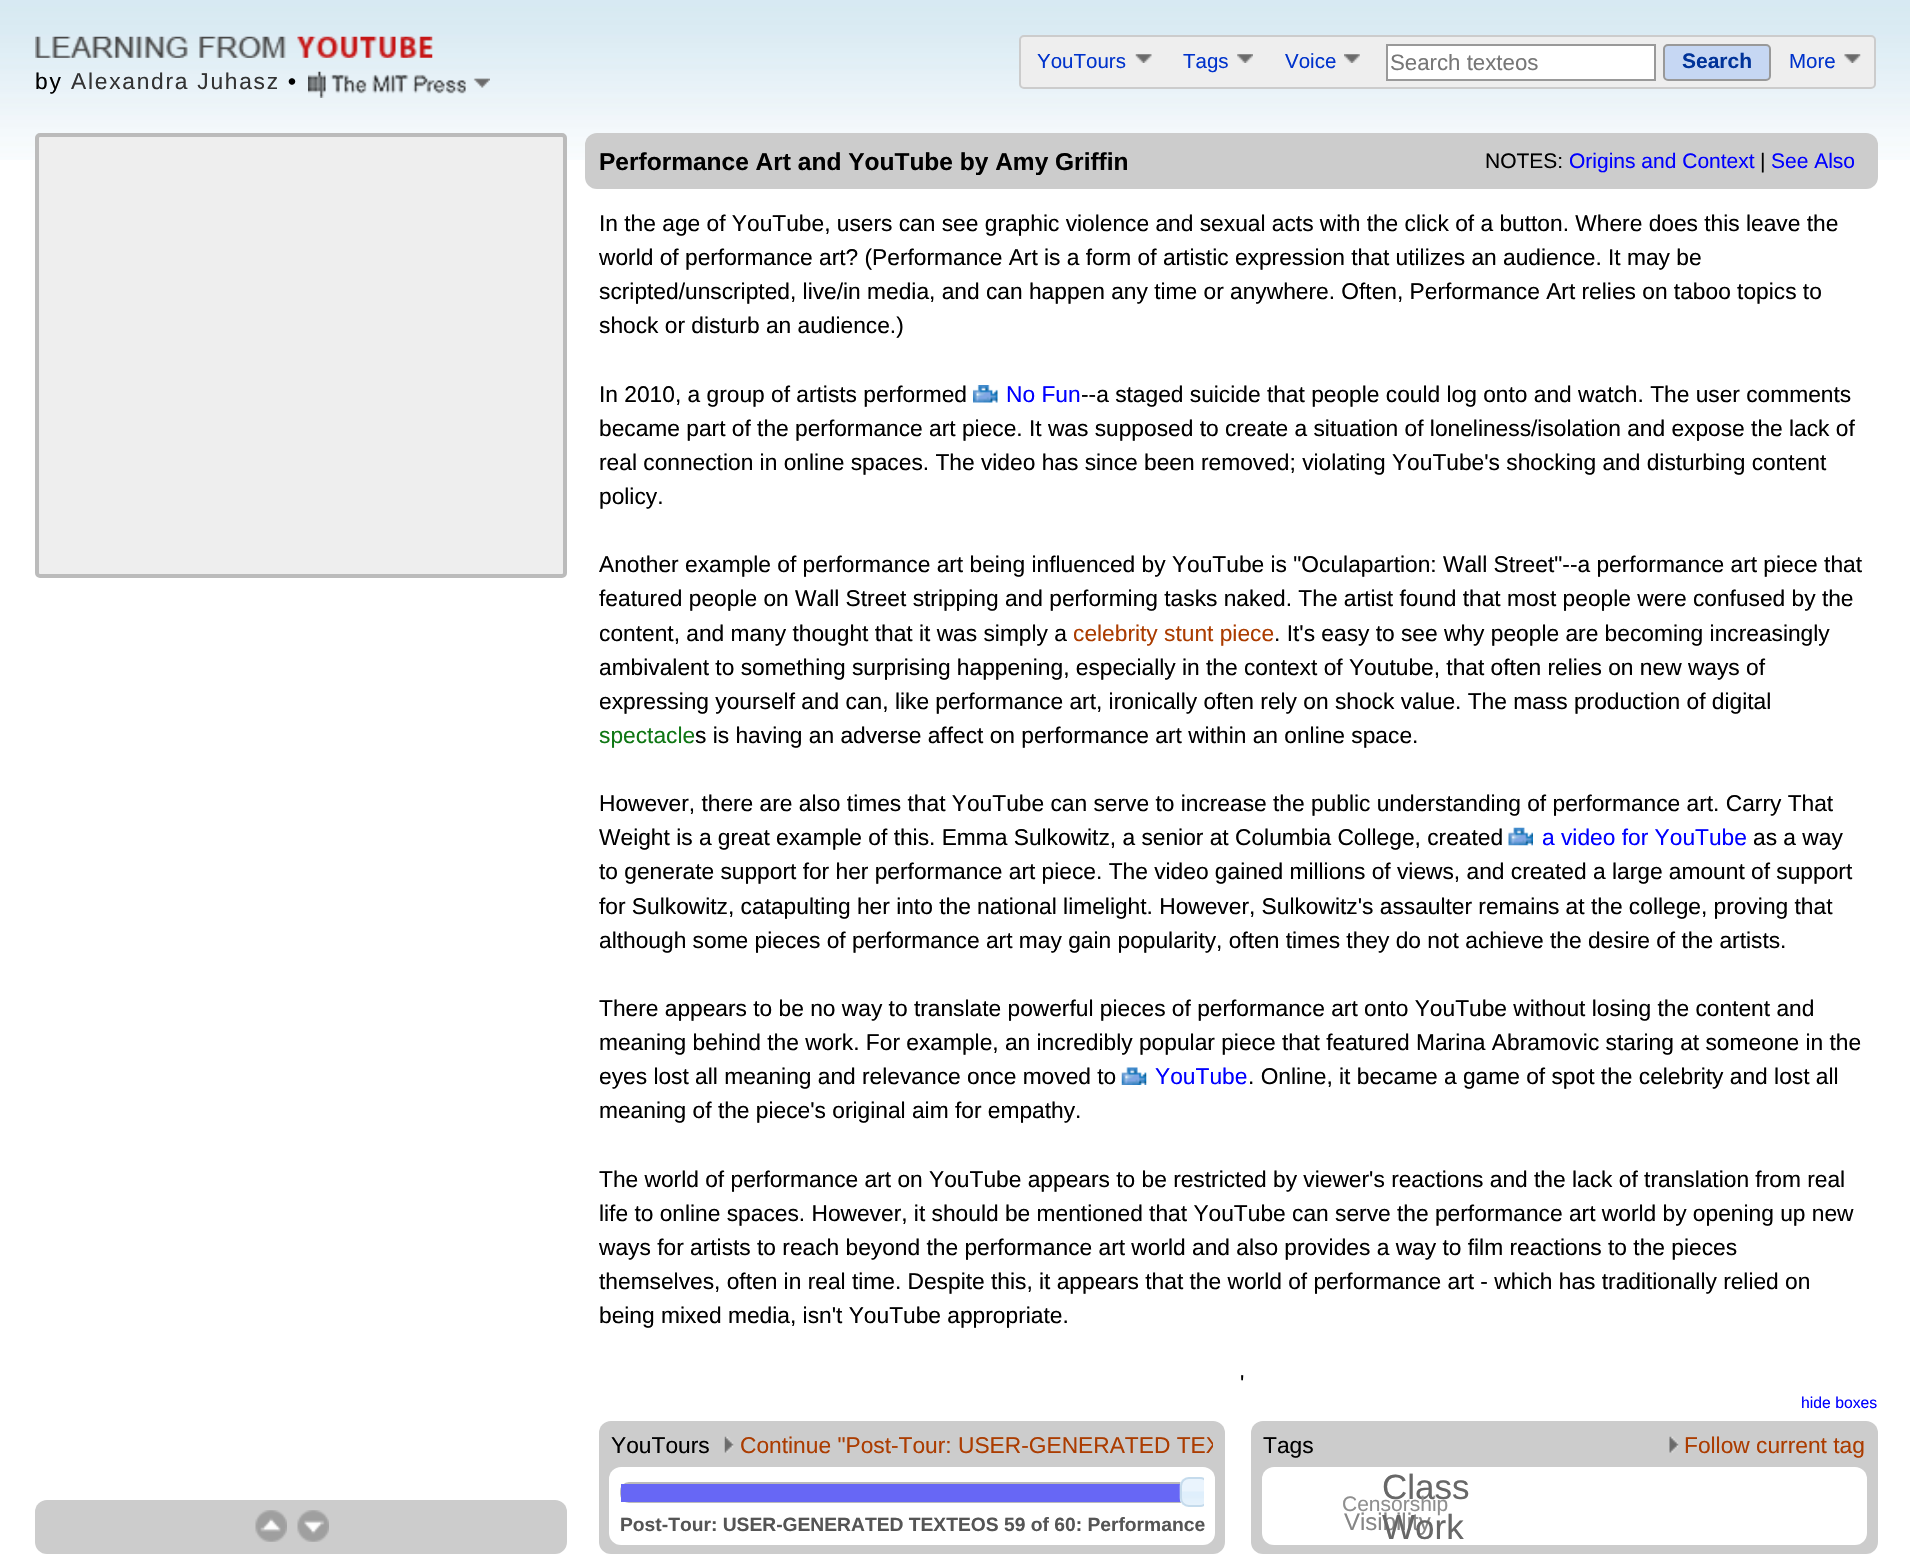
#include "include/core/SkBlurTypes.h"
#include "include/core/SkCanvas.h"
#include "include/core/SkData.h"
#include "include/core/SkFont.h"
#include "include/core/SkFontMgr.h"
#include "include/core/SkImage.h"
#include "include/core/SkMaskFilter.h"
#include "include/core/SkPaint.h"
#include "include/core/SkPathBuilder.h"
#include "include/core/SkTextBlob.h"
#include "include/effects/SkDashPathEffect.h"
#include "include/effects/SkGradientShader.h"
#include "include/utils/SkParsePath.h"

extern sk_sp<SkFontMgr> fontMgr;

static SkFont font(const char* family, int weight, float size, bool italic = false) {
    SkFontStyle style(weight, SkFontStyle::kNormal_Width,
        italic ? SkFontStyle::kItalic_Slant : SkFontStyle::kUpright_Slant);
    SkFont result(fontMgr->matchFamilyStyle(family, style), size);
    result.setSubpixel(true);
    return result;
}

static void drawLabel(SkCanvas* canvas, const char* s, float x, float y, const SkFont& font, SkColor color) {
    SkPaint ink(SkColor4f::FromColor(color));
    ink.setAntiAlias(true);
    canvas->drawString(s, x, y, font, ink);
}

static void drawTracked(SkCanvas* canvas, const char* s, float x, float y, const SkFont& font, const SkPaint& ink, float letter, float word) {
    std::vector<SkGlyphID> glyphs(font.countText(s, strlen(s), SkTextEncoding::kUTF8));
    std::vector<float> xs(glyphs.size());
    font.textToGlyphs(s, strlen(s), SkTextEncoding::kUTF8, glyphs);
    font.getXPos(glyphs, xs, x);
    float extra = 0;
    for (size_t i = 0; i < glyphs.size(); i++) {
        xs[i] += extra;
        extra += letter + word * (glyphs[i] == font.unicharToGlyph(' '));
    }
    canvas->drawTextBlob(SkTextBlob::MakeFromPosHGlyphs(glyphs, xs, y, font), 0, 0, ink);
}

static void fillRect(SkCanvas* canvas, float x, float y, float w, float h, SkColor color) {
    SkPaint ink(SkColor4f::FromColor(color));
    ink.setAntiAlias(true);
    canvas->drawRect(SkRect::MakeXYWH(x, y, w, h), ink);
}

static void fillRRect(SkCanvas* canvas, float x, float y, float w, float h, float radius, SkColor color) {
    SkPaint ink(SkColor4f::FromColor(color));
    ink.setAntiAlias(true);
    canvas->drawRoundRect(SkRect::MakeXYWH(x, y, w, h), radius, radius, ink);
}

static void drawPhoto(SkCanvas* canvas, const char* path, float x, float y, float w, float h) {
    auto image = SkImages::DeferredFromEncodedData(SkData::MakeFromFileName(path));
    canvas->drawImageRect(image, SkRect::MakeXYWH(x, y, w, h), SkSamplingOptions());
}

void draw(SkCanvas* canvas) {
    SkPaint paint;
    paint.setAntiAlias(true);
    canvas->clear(0xFFFFFFFF);
    drawPhoto(canvas, "assets/img1.png", 0, 0, 1910, 160);
    paint.setColor(0xFFEEEEEE);
    canvas->drawRoundRect(SkRect::MakeXYWH(1020, 36, 855, 52), 4, 4, paint);
    paint.setStroke(true);
    paint.setStrokeWidth(2);
    paint.setColor(0xFFCCCCCC);
    canvas->drawRoundRect(SkRect::MakeXYWH(1020, 36, 855, 52), 4, 4, paint);
    SkFont font1 = font("Liberation Sans", 400, 20.5f);
    drawLabel(canvas, "YouTours", 1037, 68, font1, 0xFF0033CC);
    drawPhoto(canvas, "assets/img2.png", 1135, 54, 17, 9);
    drawLabel(canvas, "Tags", 1183, 68, font1, 0xFF0033CC);
    drawPhoto(canvas, "assets/img3.png", 1237, 54, 16, 9);
    drawLabel(canvas, "Voice", 1285, 68, font1, 0xFF0033CC);
    drawPhoto(canvas, "assets/img4.png", 1344, 54, 16, 9);
    paint.setStroke(false);
    paint.setColor(0xFFFFFFFF);
    canvas->drawRect(SkRect::MakeXYWH(1387, 45, 268, 35), paint);
    paint.setStroke(true);
    paint.setColor(0xFF999999);
    canvas->drawRect(SkRect::MakeXYWH(1387, 45, 268, 35), paint);
    SkFont font2 = font("Liberation Sans", 400, 22.25f);
    drawLabel(canvas, "Search texteos", 1390, 70, font2, 0xFF777777);
    paint.setStroke(false);
    paint.setColor(0xFFC6D7F3);
    canvas->drawRoundRect(SkRect::MakeXYWH(1664, 45, 106, 35), 4, 4, paint);
    paint.setStroke(true);
    paint.setColor(0xFF999999);
    canvas->drawRoundRect(SkRect::MakeXYWH(1664, 45, 106, 35), 4, 4, paint);
    SkFont font3 = font("Liberation Sans", 700, 21);
    drawLabel(canvas, "Search", 1682, 68, font3, 0xFF003399);
    drawLabel(canvas, "More", 1789, 68, font1, 0xFF0033CC);
    drawPhoto(canvas, "assets/img5.png", 1844, 54, 17, 9);
    drawPhoto(canvas, "assets/img6.png", 35, 36, 398, 22);
    SkFont font4 = font("Liberation Sans", 400, 22.75f);
    paint.setStroke(false);
    paint.setColor(0xFF000000);
    drawTracked(canvas, "by", 35, 89, font4, paint, 1.75f, 0);
    paint.setColor(0xFF333333);
    drawTracked(canvas, "Alexandra Juhasz", 71, 89, font4, paint, 1.75f, 0);
    SkFont font5 = font("Liberation Sans", 700, 22.75f);
    paint.setColor(0xFF000000);
    drawTracked(canvas, "•", 288, 89, font5, paint, 1.75f, 0);
    drawPhoto(canvas, "assets/img7.png", 308, 71, 182, 27);
    paint.setColor(0xFFEEEEEE);
    canvas->drawRoundRect(SkRect::MakeXYWH(37, 135, 528, 441), 3, 3, paint);
    paint.setStroke(true);
    paint.setStrokeWidth(4);
    paint.setColor(0xFFBBBBBB);
    canvas->drawRoundRect(SkRect::MakeXYWH(37, 135, 528, 441), 3, 3, paint);
    fillRRect(canvas, 585, 133, 1293, 56, 12, 0xFFCCCCCC);
    SkFont font6 = font("Liberation Sans", 700, 24.5f);
    drawLabel(canvas, "Performance Art and YouTube by Amy Griffin", 599, 170, font6, 0xFF000000);
    SkFont font7 = font("Liberation Sans", 400, 21);
    drawLabel(canvas, "NOTES:", 1485, 168, font7, 0xFF000000);
    drawLabel(canvas, "Origins and Context", 1569, 168, font7, 0xFF0000FF);
    drawLabel(canvas, "|", 1760, 168, font7, 0xFF000000);
    drawLabel(canvas, "See Also", 1771, 168, font7, 0xFF0000FF);
    drawLabel(canvas, "In the age of YouTube, users can see graphic violence and sexual acts with the click of a button. Where does this leave the", 599, 231, font4, 0xFF000000);
    drawLabel(canvas, "world of performance art? (Performance Art is a form of artistic expression that utilizes an audience. It may be", 599, 265, font4, 0xFF000000);
    drawLabel(canvas, "scripted/unscripted, live/in media, and can happen any time or anywhere. Often, Performance Art relies on taboo topics to", 599, 299, font4, 0xFF000000);
    drawLabel(canvas, "shock or disturb an audience.)", 599, 333, font4, 0xFF000000);
    drawLabel(canvas, "In 2010, a group of artists performed", 599, 402, font4, 0xFF000000);
    drawPhoto(canvas, "assets/img8.png", 973, 385, 25, 18);
    drawLabel(canvas, "No Fun", 1006, 402, font4, 0xFF0000FF);
    drawLabel(canvas, "--a staged suicide that people could log onto and watch. The user comments", 1081, 402, font4, 0xFF000000);
    drawLabel(canvas, "became part of the performance art piece. It was supposed to create a situation of loneliness/isolation and expose the lack of", 599, 436, font4, 0xFF000000);
    drawLabel(canvas, "real connection in online spaces. The video has since been removed; violating YouTube's shocking and disturbing content", 599, 470, font4, 0xFF000000);
    drawLabel(canvas, "policy.", 599, 504, font4, 0xFF000000);
    drawLabel(canvas, "Another example of performance art being influenced by YouTube is \"Oculapartion: Wall Street\"--a performance art piece that", 599, 572, font4, 0xFF000000);
    drawLabel(canvas, "featured people on Wall Street stripping and performing tasks naked. The artist found that most people were confused by the", 599, 606, font4, 0xFF000000);
    drawLabel(canvas, "content, and many thought that it was simply a", 599, 641, font4, 0xFF000000);
    drawLabel(canvas, "celebrity stunt piece", 1073, 641, font4, 0xFFAB3C00);
    drawLabel(canvas, ". It's easy to see why people are becoming increasingly", 1274, 641, font4, 0xFF000000);
    drawLabel(canvas, "ambivalent to something surprising happening, especially in the context of Youtube, that often relies on new ways of", 599, 675, font4, 0xFF000000);
    drawLabel(canvas, "expressing yourself and can, like performance art, ironically often rely on shock value. The mass production of digital", 599, 709, font4, 0xFF000000);
    drawLabel(canvas, "spectacle", 599, 743, font4, 0xFF0F7714);
    drawLabel(canvas, "s is having an adverse affect on performance art within an online space.", 695, 743, font4, 0xFF000000);
    drawLabel(canvas, "However, there are also times that YouTube can serve to increase the public understanding of performance art. Carry That", 599, 811, font4, 0xFF000000);
    drawLabel(canvas, "Weight is a great example of this. Emma Sulkowitz, a senior at Columbia College, created", 599, 845, font4, 0xFF000000);
    drawPhoto(canvas, "assets/img9.png", 1508, 827, 25, 19);
    drawLabel(canvas, "a video for YouTube", 1542, 845, font4, 0xFF0000FF);
    drawLabel(canvas, "as a way", 1753, 845, font4, 0xFF000000);
    drawLabel(canvas, "to generate support for her performance art piece. The video gained millions of views, and created a large amount of support", 599, 879, font4, 0xFF000000);
    drawLabel(canvas, "for Sulkowitz, catapulting her into the national limelight. However, Sulkowitz's assaulter remains at the college, proving that", 599, 914, font4, 0xFF000000);
    drawLabel(canvas, "although some pieces of performance art may gain popularity, often times they do not achieve the desire of the artists.", 599, 948, font4, 0xFF000000);
    drawLabel(canvas, "There appears to be no way to translate powerful pieces of performance art onto YouTube without losing the content and", 599, 1016, font4, 0xFF000000);
    drawLabel(canvas, "meaning behind the work. For example, an incredibly popular piece that featured Marina Abramovic staring at someone in the", 599, 1050, font4, 0xFF000000);
    drawLabel(canvas, "eyes lost all meaning and relevance once moved to", 599, 1084, font4, 0xFF000000);
    drawPhoto(canvas, "assets/img10.png", 1121, 1067, 26, 18);
    drawLabel(canvas, "YouTube", 1155, 1084, font4, 0xFF0000FF);
    drawLabel(canvas, ". Online, it became a game of spot the celebrity and lost all", 1248, 1084, font4, 0xFF000000);
    drawLabel(canvas, "meaning of the piece's original aim for empathy.", 599, 1118, font4, 0xFF000000);
    drawLabel(canvas, "The world of performance art on YouTube appears to be restricted by viewer's reactions and the lack of translation from real", 599, 1187, font4, 0xFF000000);
    drawLabel(canvas, "life to online spaces. However, it should be mentioned that YouTube can serve the performance art world by opening up new", 599, 1221, font4, 0xFF000000);
    drawLabel(canvas, "ways for artists to reach beyond the performance art world and also provides a way to film reactions to the pieces", 599, 1255, font4, 0xFF000000);
    drawLabel(canvas, "themselves, often in real time. Despite this, it appears that the world of performance art - which has traditionally relied on", 599, 1289, font4, 0xFF000000);
    drawLabel(canvas, "being mixed media, isn't YouTube appropriate.", 599, 1323, font4, 0xFF000000);
    drawLabel(canvas, "'", 1240, 1391, font4, 0xFF000000);
    SkFont font8 = font("Liberation Sans", 400, 15.75f);
    drawLabel(canvas, "hide boxes", 1801, 1408, font8, 0xFF0000FF);
    fillRRect(canvas, 599, 1421, 626, 133, 12, 0xFFCCCCCC);
    drawLabel(canvas, "YouTours", 611, 1453, font4, 0xFF000000);
    drawPhoto(canvas, "assets/img11.png", 724, 1436, 10, 17);
    canvas->save();
    canvas->clipRect(SkRect::MakeXYWH(725, 1432, 488, 26));
    drawLabel(canvas, "Continue \"Post-Tour: USER-GENERATED TEX", 740, 1453, font4, 0xFFAB3C00);
    canvas->restore();
    fillRRect(canvas, 609, 1467, 606, 78, 12, 0xFFFFFFFF);
    paint.setStrokeWidth(2);
    canvas->drawRoundRect(SkRect::MakeXYWH(621, 1483, 582, 19), 8, 8, paint);
    fillRect(canvas, 621, 1484, 560, 18, 0xFF6767F5);
    drawPhoto(canvas, "assets/img12.png", 1179, 1477, 25, 30);
    canvas->save();
    canvas->clipRect(SkRect::MakeXYWH(620, 1474, 584, 61));
    paint.setColor(0xFFC5DBEC);
    canvas->drawRoundRect(SkRect::MakeXYWH(1181, 1478, 27, 28), 8, 8, paint);
    canvas->restore();
    SkFont font9 = font("Liberation Sans", 700, 19.25f);
    drawLabel(canvas, "Post-Tour: USER-GENERATED TEXTEOS 59 of 60: Performance", 620, 1531, font9, 0xFF555555);
    fillRRect(canvas, 1251, 1421, 627, 133, 12, 0xFFCCCCCC);
    drawLabel(canvas, "Tags", 1263, 1453, font4, 0xFF000000);
    drawPhoto(canvas, "assets/img13.png", 1669, 1436, 10, 17);
    drawLabel(canvas, "Follow current tag", 1684, 1453, font4, 0xFFAB3C00);
    fillRRect(canvas, 1262, 1467, 605, 78, 12, 0xFFFFFFFF);
    SkFont font10 = font("Liberation Sans", 400, 35);
    drawLabel(canvas, "Class", 1382, 1499, font10, 0xFF676767);
    SkFont font11 = font("Liberation Sans", 400, 24);
    drawLabel(canvas, "Visibility", 1344, 1530, font11, 0xFF868686);
    drawLabel(canvas, "Work", 1382, 1539, font10, 0xFF676767);
    drawLabel(canvas, "Censorship", 1342, 1511, font7, 0xFF8F8F8F);
    fillRRect(canvas, 35, 1500, 532, 54, 12, 0xFFCCCCCC);
    drawPhoto(canvas, "assets/img14.png", 255, 1510, 32, 32);
    drawPhoto(canvas, "assets/img15.png", 297, 1510, 32, 32);
}
